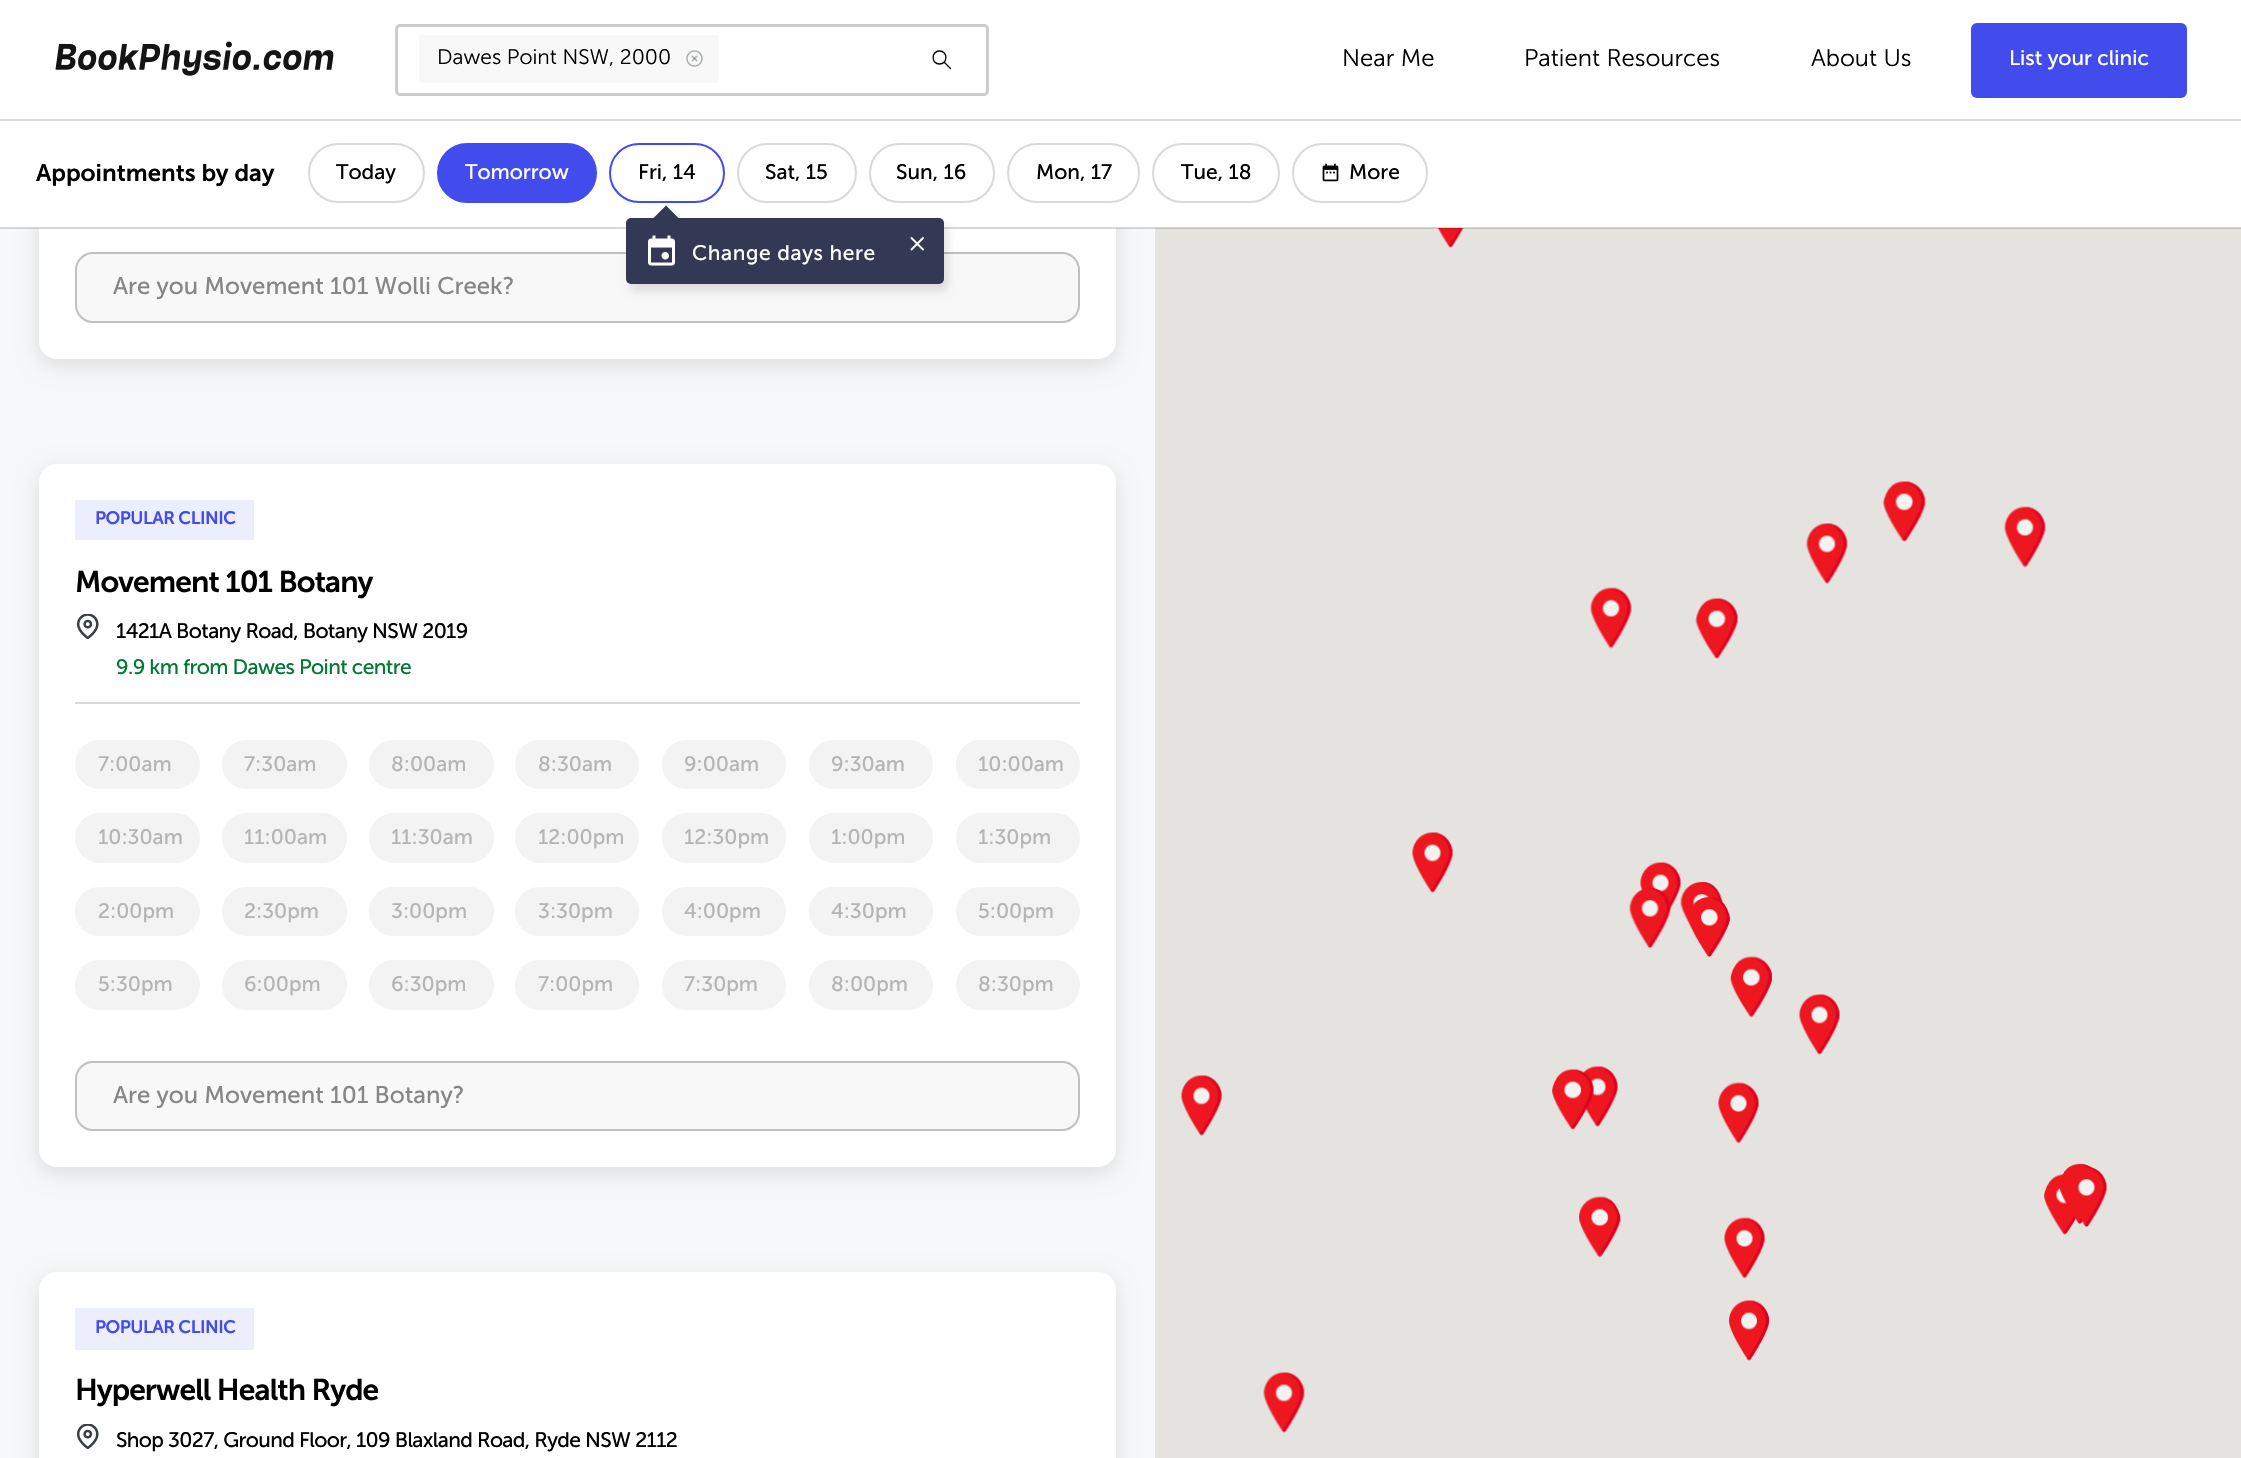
#include "include/core/SkBlurTypes.h"
#include "include/core/SkCanvas.h"
#include "include/core/SkData.h"
#include "include/core/SkFont.h"
#include "include/core/SkFontMgr.h"
#include "include/core/SkImage.h"
#include "include/core/SkMaskFilter.h"
#include "include/core/SkPaint.h"
#include "include/core/SkPathBuilder.h"
#include "include/core/SkTextBlob.h"
#include "include/effects/SkDashPathEffect.h"
#include "include/effects/SkGradientShader.h"
#include "include/utils/SkParsePath.h"

extern sk_sp<SkFontMgr> fontMgr;

static SkFont font(const char* family, int weight, float size, bool italic = false) {
    SkFontStyle style(weight, SkFontStyle::kNormal_Width,
        italic ? SkFontStyle::kItalic_Slant : SkFontStyle::kUpright_Slant);
    SkFont result(fontMgr->matchFamilyStyle(family, style), size);
    result.setSubpixel(true);
    return result;
}

static void drawLabel(SkCanvas* canvas, const char* s, float x, float y, const SkFont& font, SkColor color) {
    SkPaint ink(SkColor4f::FromColor(color));
    ink.setAntiAlias(true);
    canvas->drawString(s, x, y, font, ink);
}

static void drawTracked(SkCanvas* canvas, const char* s, float x, float y, const SkFont& font, const SkPaint& ink, float letter, float word) {
    std::vector<SkGlyphID> glyphs(font.countText(s, strlen(s), SkTextEncoding::kUTF8));
    std::vector<float> xs(glyphs.size());
    font.textToGlyphs(s, strlen(s), SkTextEncoding::kUTF8, glyphs);
    font.getXPos(glyphs, xs, x);
    float extra = 0;
    for (size_t i = 0; i < glyphs.size(); i++) {
        xs[i] += extra;
        extra += letter + word * (glyphs[i] == font.unicharToGlyph(' '));
    }
    canvas->drawTextBlob(SkTextBlob::MakeFromPosHGlyphs(glyphs, xs, y, font), 0, 0, ink);
}

static void fillRect(SkCanvas* canvas, float x, float y, float w, float h, SkColor color) {
    SkPaint ink(SkColor4f::FromColor(color));
    ink.setAntiAlias(true);
    canvas->drawRect(SkRect::MakeXYWH(x, y, w, h), ink);
}

static void fillRRect(SkCanvas* canvas, float x, float y, float w, float h, float radius, SkColor color) {
    SkPaint ink(SkColor4f::FromColor(color));
    ink.setAntiAlias(true);
    canvas->drawRoundRect(SkRect::MakeXYWH(x, y, w, h), radius, radius, ink);
}

static void drawPhoto(SkCanvas* canvas, const char* path, float x, float y, float w, float h) {
    auto image = SkImages::DeferredFromEncodedData(SkData::MakeFromFileName(path));
    canvas->drawImageRect(image, SkRect::MakeXYWH(x, y, w, h), SkSamplingOptions());
}

static SkPath parsePath(const char* data, bool evenOdd = false) {
    SkPath result = *SkParsePath::FromSVGString(data);
    if (evenOdd) result.setFillType(SkPathFillType::kEvenOdd);
    return result;
}

void draw(SkCanvas* canvas) {
    SkPaint paint;
    paint.setAntiAlias(true);
    canvas->clear(0xFFF7F8F9);
    paint.setColor(0x1C000000);
    paint.setMaskFilter(SkMaskFilter::MakeBlur(kNormal_SkBlurStyle, 10.5f));
    canvas->drawRoundRect(SkRect::MakeXYWH(39, -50, 1077, 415), 18, 18, paint);
    paint.setMaskFilter(nullptr);
    fillRRect(canvas, 39, -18, 1077, 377, 18, 0xFFFFFFFF);
    fillRect(canvas, 0, 0, 2241, 119, 0xFFFFFFFF);
    fillRect(canvas, 0, 119, 2241, 2, 0xFFD9D9D9);
    drawPhoto(canvas, "assets/img1.png", 55, 41, 279, 35);
    paint.setStroke(true);
    paint.setStrokeWidth(3);
    paint.setColor(0xFFCDCDCD);
    canvas->drawRoundRect(SkRect::MakeXYWH(396.5f, 25.5f, 591, 69), 3.5f, 3.5f, paint);
    fillRRect(canvas, 419, 35, 300, 48, 3, 0xFFF8F8F8);
    SkFont font1 = font("Museo Sans", 300, 21);
    drawLabel(canvas, "Dawes Point NSW, 2000", 437, 64, font1, 0xFF000000);
    drawPhoto(canvas, "assets/img2.png", 686, 50, 17, 17);
    paint.setStrokeWidth(1.3f);
    paint.setStrokeCap(SkPaint::kRound_Cap);
    paint.setStrokeJoin(SkPaint::kRound_Join);
    paint.setColor(0xFF000000);
    canvas->drawPath(parsePath("M944 62L950.5 68.5M939.5 64C948 64 948 51 939.5 51C931 51 931 64 939.5 64Z"), paint);
    SkFont font2 = font("Museo Sans", 300, 24);
    drawLabel(canvas, "Near Me", 1342, 66, font2, 0xFF000000);
    drawLabel(canvas, "Patient Resources", 1524, 66, font2, 0xFF000000);
    drawLabel(canvas, "About Us", 1811, 66, font2, 0xFF000000);
    paint.setStroke(false);
    paint.setColor(0xFF424BEC);
    canvas->drawRoundRect(SkRect::MakeXYWH(1972, 24, 214, 73), 5, 5, paint);
    paint.setStroke(true);
    paint.setStrokeWidth(2);
    paint.setStrokeCap(SkPaint::kButt_Cap);
    paint.setStrokeJoin(SkPaint::kMiter_Join);
    canvas->drawRoundRect(SkRect::MakeXYWH(1972, 24, 214, 73), 5, 5, paint);
    SkFont font3 = font("Museo Sans", 400, 21);
    drawLabel(canvas, "List your clinic", 2009, 65, font3, 0xFFFFFFFF);
    fillRect(canvas, 0, 121, 2241, 107, 0xFFFFFFFF);
    fillRect(canvas, 1155, 228, 1086, 1230, 0xFFE5E3DF);
    drawPhoto(canvas, "assets/img6.png", 1437, 228, 27, 20);
    fillRect(canvas, 0, 227, 2241, 2, 0x26000000);
    SkFont font4 = font("Museo Sans", 600, 24);
    drawLabel(canvas, "Appointments by day", 36, 181, font4, 0xFF000000);
    paint.setColor(0xFFD9D9D9);
    canvas->drawRoundRect(SkRect::MakeXYWH(309, 144, 115, 58), 29, 29, paint);
    drawLabel(canvas, "Today", 336, 179, font3, 0xFF000000);
    paint.setStroke(false);
    paint.setColor(0xFF424BEC);
    canvas->drawRoundRect(SkRect::MakeXYWH(438, 144, 158, 58), 29, 29, paint);
    paint.setStroke(true);
    canvas->drawRoundRect(SkRect::MakeXYWH(438, 144, 158, 58), 29, 29, paint);
    drawLabel(canvas, "Tomorrow", 465, 179, font3, 0xFFFFFFFF);
    canvas->drawRoundRect(SkRect::MakeXYWH(610, 144, 114, 58), 29, 29, paint);
    drawLabel(canvas, "Fri, 14", 638, 179, font3, 0xFF000000);
    paint.setStroke(false);
    paint.setColor(0xFF333954);
    canvas->drawPath(parsePath("M679.5 219H652.5L666 205.5Z"), paint);
    paint.setStroke(true);
    paint.setColor(0xFFD9D9D9);
    canvas->drawRoundRect(SkRect::MakeXYWH(738, 144, 118, 58), 29, 29, paint);
    drawLabel(canvas, "Sat, 15", 765, 179, font3, 0xFF000000);
    canvas->drawRoundRect(SkRect::MakeXYWH(870, 144, 124, 58), 29, 29, paint);
    drawLabel(canvas, "Sun, 16", 896, 179, font3, 0xFF000000);
    canvas->drawRoundRect(SkRect::MakeXYWH(1008, 144, 131, 58), 29, 29, paint);
    drawLabel(canvas, "Mon, 17", 1036, 179, font3, 0xFF000000);
    canvas->drawRoundRect(SkRect::MakeXYWH(1153, 144, 126, 58), 29, 29, paint);
    drawLabel(canvas, "Tue, 18", 1181, 179, font3, 0xFF000000);
    canvas->drawRoundRect(SkRect::MakeXYWH(1293, 144, 134, 58), 29, 29, paint);
    drawPhoto(canvas, "assets/img3.png", 1322, 163, 17, 19);
    drawLabel(canvas, "More", 1349, 179, font3, 0xFF000000);
    paint.setStroke(false);
    paint.setColor(0xFFF8F8F8);
    canvas->drawRoundRect(SkRect::MakeXYWH(76, 253, 1003, 69), 17, 17, paint);
    paint.setStroke(true);
    paint.setColor(0xFFC1C0C0);
    canvas->drawRoundRect(SkRect::MakeXYWH(76, 253, 1003, 69), 17, 17, paint);
    paint.setStroke(false);
    paint.setColor(0x1C000000);
    paint.setMaskFilter(SkMaskFilter::MakeBlur(kNormal_SkBlurStyle, 4));
    canvas->drawRoundRect(SkRect::MakeXYWH(630, 225, 318, 66), 5, 5, paint);
    paint.setMaskFilter(nullptr);
    fillRRect(canvas, 626, 218, 318, 66, 5, 0xFF333954);
    drawPhoto(canvas, "assets/img4.png", 648, 235, 27, 31);
    paint.setColor(0xFFFFFFFF);
    drawTracked(canvas, "Change days here", 692, 260, font3, paint, 0.6f, 0);
    paint.setStroke(true);
    paint.setStrokeWidth(1.9f);
    paint.setStrokeCap(SkPaint::kRound_Cap);
    paint.setStrokeJoin(SkPaint::kRound_Join);
    canvas->drawPath(parsePath("M923 238L911.5 249.5M911.5 238L923 249.5"), paint);
    SkFont font5 = font("Museo Sans", 400, 24);
    drawLabel(canvas, "Are you Movement 101 Wolli Creek?", 113, 294, font5, 0xFF868686);
    paint.setStroke(false);
    paint.setColor(0x1C000000);
    paint.setMaskFilter(SkMaskFilter::MakeBlur(kNormal_SkBlurStyle, 10.5f));
    canvas->drawRoundRect(SkRect::MakeXYWH(39, 470, 1077, 703), 18, 18, paint);
    paint.setMaskFilter(nullptr);
    fillRRect(canvas, 39, 464, 1077, 703, 18, 0xFFFFFFFF);
    fillRect(canvas, 75, 702, 1005, 2, 0xFFD9D9D9);
    fillRect(canvas, 75, 500, 179, 40, 0xFFECEDFD);
    SkFont font6 = font("Museo Sans", 600, 18);
    paint.setColor(0xFF424BEC);
    drawTracked(canvas, "POPULAR CLINIC", 95, 524, font6, paint, -0.5f, 0);
    SkFont font7 = font("Museo Sans", 600, 30);
    paint.setColor(0xFF000000);
    drawTracked(canvas, "Movement 101 Botany", 75, 592, font7, paint, -0.9f, 0);
    drawPhoto(canvas, "assets/img5.png", 76, 614, 23, 25);
    drawTracked(canvas, "1421A Botany Road, Botany NSW 2019", 116, 638, font3, paint, -0.63f, 0);
    paint.setColor(0xFF037934);
    drawTracked(canvas, "9.9 km from Dawes Point centre", 116, 674, font3, paint, -0.63f, 0);
    paint.setColor(0xFFF4F3F4);
    canvas->drawRoundRect(SkRect::MakeXYWH(76, 741, 123, 47), 23.5f, 23.5f, paint);
    paint.setStroke(true);
    paint.setStrokeWidth(2);
    paint.setStrokeCap(SkPaint::kButt_Cap);
    paint.setStrokeJoin(SkPaint::kMiter_Join);
    canvas->drawRoundRect(SkRect::MakeXYWH(76, 741, 123, 47), 23.5f, 23.5f, paint);
    drawLabel(canvas, "7:00am", 98, 771, font3, 0xFFB5B5B4);
    paint.setStroke(false);
    canvas->drawRoundRect(SkRect::MakeXYWH(223, 741, 123, 47), 23.5f, 23.5f, paint);
    paint.setStroke(true);
    canvas->drawRoundRect(SkRect::MakeXYWH(223, 741, 123, 47), 23.5f, 23.5f, paint);
    drawLabel(canvas, "7:30am", 244, 771, font3, 0xFFB5B5B4);
    paint.setStroke(false);
    canvas->drawRoundRect(SkRect::MakeXYWH(370, 741, 123, 47), 23.5f, 23.5f, paint);
    paint.setStroke(true);
    canvas->drawRoundRect(SkRect::MakeXYWH(370, 741, 123, 47), 23.5f, 23.5f, paint);
    drawLabel(canvas, "8:00am", 391, 771, font3, 0xFFB5B5B4);
    paint.setStroke(false);
    canvas->drawRoundRect(SkRect::MakeXYWH(516, 741, 122, 47), 23.5f, 23.5f, paint);
    paint.setStroke(true);
    canvas->drawRoundRect(SkRect::MakeXYWH(516, 741, 122, 47), 23.5f, 23.5f, paint);
    drawLabel(canvas, "8:30am", 538, 771, font3, 0xFFB5B5B4);
    paint.setStroke(false);
    canvas->drawRoundRect(SkRect::MakeXYWH(663, 741, 122, 47), 23.5f, 23.5f, paint);
    paint.setStroke(true);
    canvas->drawRoundRect(SkRect::MakeXYWH(663, 741, 122, 47), 23.5f, 23.5f, paint);
    drawLabel(canvas, "9:00am", 684, 771, font3, 0xFFB5B5B4);
    paint.setStroke(false);
    canvas->drawRoundRect(SkRect::MakeXYWH(810, 741, 122, 47), 23.5f, 23.5f, paint);
    paint.setStroke(true);
    canvas->drawRoundRect(SkRect::MakeXYWH(810, 741, 122, 47), 23.5f, 23.5f, paint);
    drawLabel(canvas, "9:30am", 831, 771, font3, 0xFFB5B5B4);
    paint.setStroke(false);
    canvas->drawRoundRect(SkRect::MakeXYWH(957, 741, 122, 47), 23.5f, 23.5f, paint);
    paint.setStroke(true);
    canvas->drawRoundRect(SkRect::MakeXYWH(957, 741, 122, 47), 23.5f, 23.5f, paint);
    drawLabel(canvas, "10:00am", 978, 771, font3, 0xFFB5B5B4);
    paint.setStroke(false);
    canvas->drawRoundRect(SkRect::MakeXYWH(76, 814, 123, 48), 24, 24, paint);
    paint.setStroke(true);
    canvas->drawRoundRect(SkRect::MakeXYWH(76, 814, 123, 48), 24, 24, paint);
    drawLabel(canvas, "10:30am", 98, 844, font3, 0xFFB5B5B4);
    paint.setStroke(false);
    canvas->drawRoundRect(SkRect::MakeXYWH(223, 814, 123, 48), 24, 24, paint);
    paint.setStroke(true);
    canvas->drawRoundRect(SkRect::MakeXYWH(223, 814, 123, 48), 24, 24, paint);
    drawLabel(canvas, "11:00am", 244, 844, font3, 0xFFB5B5B4);
    paint.setStroke(false);
    canvas->drawRoundRect(SkRect::MakeXYWH(370, 814, 123, 48), 24, 24, paint);
    paint.setStroke(true);
    canvas->drawRoundRect(SkRect::MakeXYWH(370, 814, 123, 48), 24, 24, paint);
    drawLabel(canvas, "11:30am", 391, 844, font3, 0xFFB5B5B4);
    paint.setStroke(false);
    canvas->drawRoundRect(SkRect::MakeXYWH(516, 814, 122, 48), 24, 24, paint);
    paint.setStroke(true);
    canvas->drawRoundRect(SkRect::MakeXYWH(516, 814, 122, 48), 24, 24, paint);
    drawLabel(canvas, "12:00pm", 538, 844, font3, 0xFFB5B5B4);
    paint.setStroke(false);
    canvas->drawRoundRect(SkRect::MakeXYWH(663, 814, 122, 48), 24, 24, paint);
    paint.setStroke(true);
    canvas->drawRoundRect(SkRect::MakeXYWH(663, 814, 122, 48), 24, 24, paint);
    drawLabel(canvas, "12:30pm", 684, 844, font3, 0xFFB5B5B4);
    paint.setStroke(false);
    canvas->drawRoundRect(SkRect::MakeXYWH(810, 814, 122, 48), 24, 24, paint);
    paint.setStroke(true);
    canvas->drawRoundRect(SkRect::MakeXYWH(810, 814, 122, 48), 24, 24, paint);
    drawLabel(canvas, "1:00pm", 831, 844, font3, 0xFFB5B5B4);
    paint.setStroke(false);
    canvas->drawRoundRect(SkRect::MakeXYWH(957, 814, 122, 48), 24, 24, paint);
    paint.setStroke(true);
    canvas->drawRoundRect(SkRect::MakeXYWH(957, 814, 122, 48), 24, 24, paint);
    drawLabel(canvas, "1:30pm", 978, 844, font3, 0xFFB5B5B4);
    paint.setStroke(false);
    canvas->drawRoundRect(SkRect::MakeXYWH(76, 888, 123, 47), 23.5f, 23.5f, paint);
    paint.setStroke(true);
    canvas->drawRoundRect(SkRect::MakeXYWH(76, 888, 123, 47), 23.5f, 23.5f, paint);
    drawLabel(canvas, "2:00pm", 98, 918, font3, 0xFFB5B5B4);
    paint.setStroke(false);
    canvas->drawRoundRect(SkRect::MakeXYWH(223, 888, 123, 47), 23.5f, 23.5f, paint);
    paint.setStroke(true);
    canvas->drawRoundRect(SkRect::MakeXYWH(223, 888, 123, 47), 23.5f, 23.5f, paint);
    drawLabel(canvas, "2:30pm", 244, 918, font3, 0xFFB5B5B4);
    paint.setStroke(false);
    canvas->drawRoundRect(SkRect::MakeXYWH(370, 888, 123, 47), 23.5f, 23.5f, paint);
    paint.setStroke(true);
    canvas->drawRoundRect(SkRect::MakeXYWH(370, 888, 123, 47), 23.5f, 23.5f, paint);
    drawLabel(canvas, "3:00pm", 391, 918, font3, 0xFFB5B5B4);
    paint.setStroke(false);
    canvas->drawRoundRect(SkRect::MakeXYWH(516, 888, 122, 47), 23.5f, 23.5f, paint);
    paint.setStroke(true);
    canvas->drawRoundRect(SkRect::MakeXYWH(516, 888, 122, 47), 23.5f, 23.5f, paint);
    drawLabel(canvas, "3:30pm", 538, 918, font3, 0xFFB5B5B4);
    paint.setStroke(false);
    canvas->drawRoundRect(SkRect::MakeXYWH(663, 888, 122, 47), 23.5f, 23.5f, paint);
    paint.setStroke(true);
    canvas->drawRoundRect(SkRect::MakeXYWH(663, 888, 122, 47), 23.5f, 23.5f, paint);
    drawLabel(canvas, "4:00pm", 684, 918, font3, 0xFFB5B5B4);
    paint.setStroke(false);
    canvas->drawRoundRect(SkRect::MakeXYWH(810, 888, 122, 47), 23.5f, 23.5f, paint);
    paint.setStroke(true);
    canvas->drawRoundRect(SkRect::MakeXYWH(810, 888, 122, 47), 23.5f, 23.5f, paint);
    drawLabel(canvas, "4:30pm", 831, 918, font3, 0xFFB5B5B4);
    paint.setStroke(false);
    canvas->drawRoundRect(SkRect::MakeXYWH(957, 888, 122, 47), 23.5f, 23.5f, paint);
    paint.setStroke(true);
    canvas->drawRoundRect(SkRect::MakeXYWH(957, 888, 122, 47), 23.5f, 23.5f, paint);
    drawLabel(canvas, "5:00pm", 978, 918, font3, 0xFFB5B5B4);
    paint.setStroke(false);
    canvas->drawRoundRect(SkRect::MakeXYWH(76, 961, 123, 48), 24, 24, paint);
    paint.setStroke(true);
    canvas->drawRoundRect(SkRect::MakeXYWH(76, 961, 123, 48), 24, 24, paint);
    drawLabel(canvas, "5:30pm", 98, 991, font3, 0xFFB5B5B4);
    paint.setStroke(false);
    canvas->drawRoundRect(SkRect::MakeXYWH(223, 961, 123, 48), 24, 24, paint);
    paint.setStroke(true);
    canvas->drawRoundRect(SkRect::MakeXYWH(223, 961, 123, 48), 24, 24, paint);
    drawLabel(canvas, "6:00pm", 244, 991, font3, 0xFFB5B5B4);
    paint.setStroke(false);
    canvas->drawRoundRect(SkRect::MakeXYWH(370, 961, 123, 48), 24, 24, paint);
    paint.setStroke(true);
    canvas->drawRoundRect(SkRect::MakeXYWH(370, 961, 123, 48), 24, 24, paint);
    drawLabel(canvas, "6:30pm", 391, 991, font3, 0xFFB5B5B4);
    paint.setStroke(false);
    canvas->drawRoundRect(SkRect::MakeXYWH(516, 961, 122, 48), 24, 24, paint);
    paint.setStroke(true);
    canvas->drawRoundRect(SkRect::MakeXYWH(516, 961, 122, 48), 24, 24, paint);
    drawLabel(canvas, "7:00pm", 538, 991, font3, 0xFFB5B5B4);
    paint.setStroke(false);
    canvas->drawRoundRect(SkRect::MakeXYWH(663, 961, 122, 48), 24, 24, paint);
    paint.setStroke(true);
    canvas->drawRoundRect(SkRect::MakeXYWH(663, 961, 122, 48), 24, 24, paint);
    drawLabel(canvas, "7:30pm", 684, 991, font3, 0xFFB5B5B4);
    paint.setStroke(false);
    canvas->drawRoundRect(SkRect::MakeXYWH(810, 961, 122, 48), 24, 24, paint);
    paint.setStroke(true);
    canvas->drawRoundRect(SkRect::MakeXYWH(810, 961, 122, 48), 24, 24, paint);
    drawLabel(canvas, "8:00pm", 831, 991, font3, 0xFFB5B5B4);
    paint.setStroke(false);
    canvas->drawRoundRect(SkRect::MakeXYWH(957, 961, 122, 48), 24, 24, paint);
    paint.setStroke(true);
    canvas->drawRoundRect(SkRect::MakeXYWH(957, 961, 122, 48), 24, 24, paint);
    drawLabel(canvas, "8:30pm", 978, 991, font3, 0xFFB5B5B4);
    paint.setStroke(false);
    paint.setColor(0xFFF8F8F8);
    canvas->drawRoundRect(SkRect::MakeXYWH(76, 1062, 1003, 68), 17, 17, paint);
    paint.setStroke(true);
    paint.setColor(0xFFC1C0C0);
    canvas->drawRoundRect(SkRect::MakeXYWH(76, 1062, 1003, 68), 17, 17, paint);
    drawLabel(canvas, "Are you Movement 101 Botany?", 113, 1103, font5, 0xFF868686);
    paint.setStroke(false);
    paint.setColor(0x1C000000);
    paint.setMaskFilter(SkMaskFilter::MakeBlur(kNormal_SkBlurStyle, 10.5f));
    canvas->drawRoundRect(SkRect::MakeXYWH(39, 1278, 1077, 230), 18, 18, paint);
    paint.setMaskFilter(nullptr);
    fillRRect(canvas, 39, 1272, 1077, 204, 18, 0xFFFFFFFF);
    fillRect(canvas, 75, 1308, 179, 42, 0xFFECEDFD);
    paint.setColor(0xFF424BEC);
    drawTracked(canvas, "POPULAR CLINIC", 95, 1333, font6, paint, -0.5f, 0);
    paint.setColor(0xFF000000);
    drawTracked(canvas, "Hyperwell Health Ryde", 75, 1400, font7, paint, -0.9f, 0);
    drawPhoto(canvas, "assets/img5.png", 76, 1424, 23, 25);
    drawTracked(canvas, "Shop 3027, Ground Floor, 109 Blaxland Road, Ryde NSW 2112", 116, 1447, font3, paint, -0.63f, 0);
    drawPhoto(canvas, "assets/img7.png", 1806, 523, 42, 61);
    drawPhoto(canvas, "assets/img8.png", 1883, 481, 43, 61);
    drawPhoto(canvas, "assets/img9.png", 2004, 506, 42, 62);
    drawPhoto(canvas, "assets/img9.png", 1590, 587, 42, 62);
    drawPhoto(canvas, "assets/img10.png", 1695, 598, 43, 61);
    drawPhoto(canvas, "assets/img11.png", 1412, 832, 41, 61);
    drawPhoto(canvas, "assets/img12.png", 1640, 862, 41, 53);
    drawPhoto(canvas, "assets/img13.png", 1680, 882, 43, 58);
    drawPhoto(canvas, "assets/img14.png", 1629, 888, 42, 60);
    drawPhoto(canvas, "assets/img15.png", 1688, 897, 42, 60);
    drawPhoto(canvas, "assets/img16.png", 1730, 956, 42, 62);
    drawPhoto(canvas, "assets/img11.png", 1799, 994, 41, 61);
    drawPhoto(canvas, "assets/img11.png", 1181, 1075, 41, 61);
    drawPhoto(canvas, "assets/img18.png", 1582, 1066, 36, 61);
    drawPhoto(canvas, "assets/img17.png", 1552, 1069, 42, 61);
    drawPhoto(canvas, "assets/img19.png", 1718, 1082, 41, 62);
    drawPhoto(canvas, "assets/img22.png", 2044, 1174, 33, 61);
    drawPhoto(canvas, "assets/img20.png", 2059, 1164, 37, 60);
    drawPhoto(canvas, "assets/img21.png", 1579, 1196, 42, 62);
    drawPhoto(canvas, "assets/img19.png", 1724, 1217, 41, 62);
    drawPhoto(canvas, "assets/img23.png", 2071, 1167, 36, 60);
    drawPhoto(canvas, "assets/img24.png", 1729, 1300, 40, 61);
    drawPhoto(canvas, "assets/img7.png", 1263, 1372, 42, 61);
}
